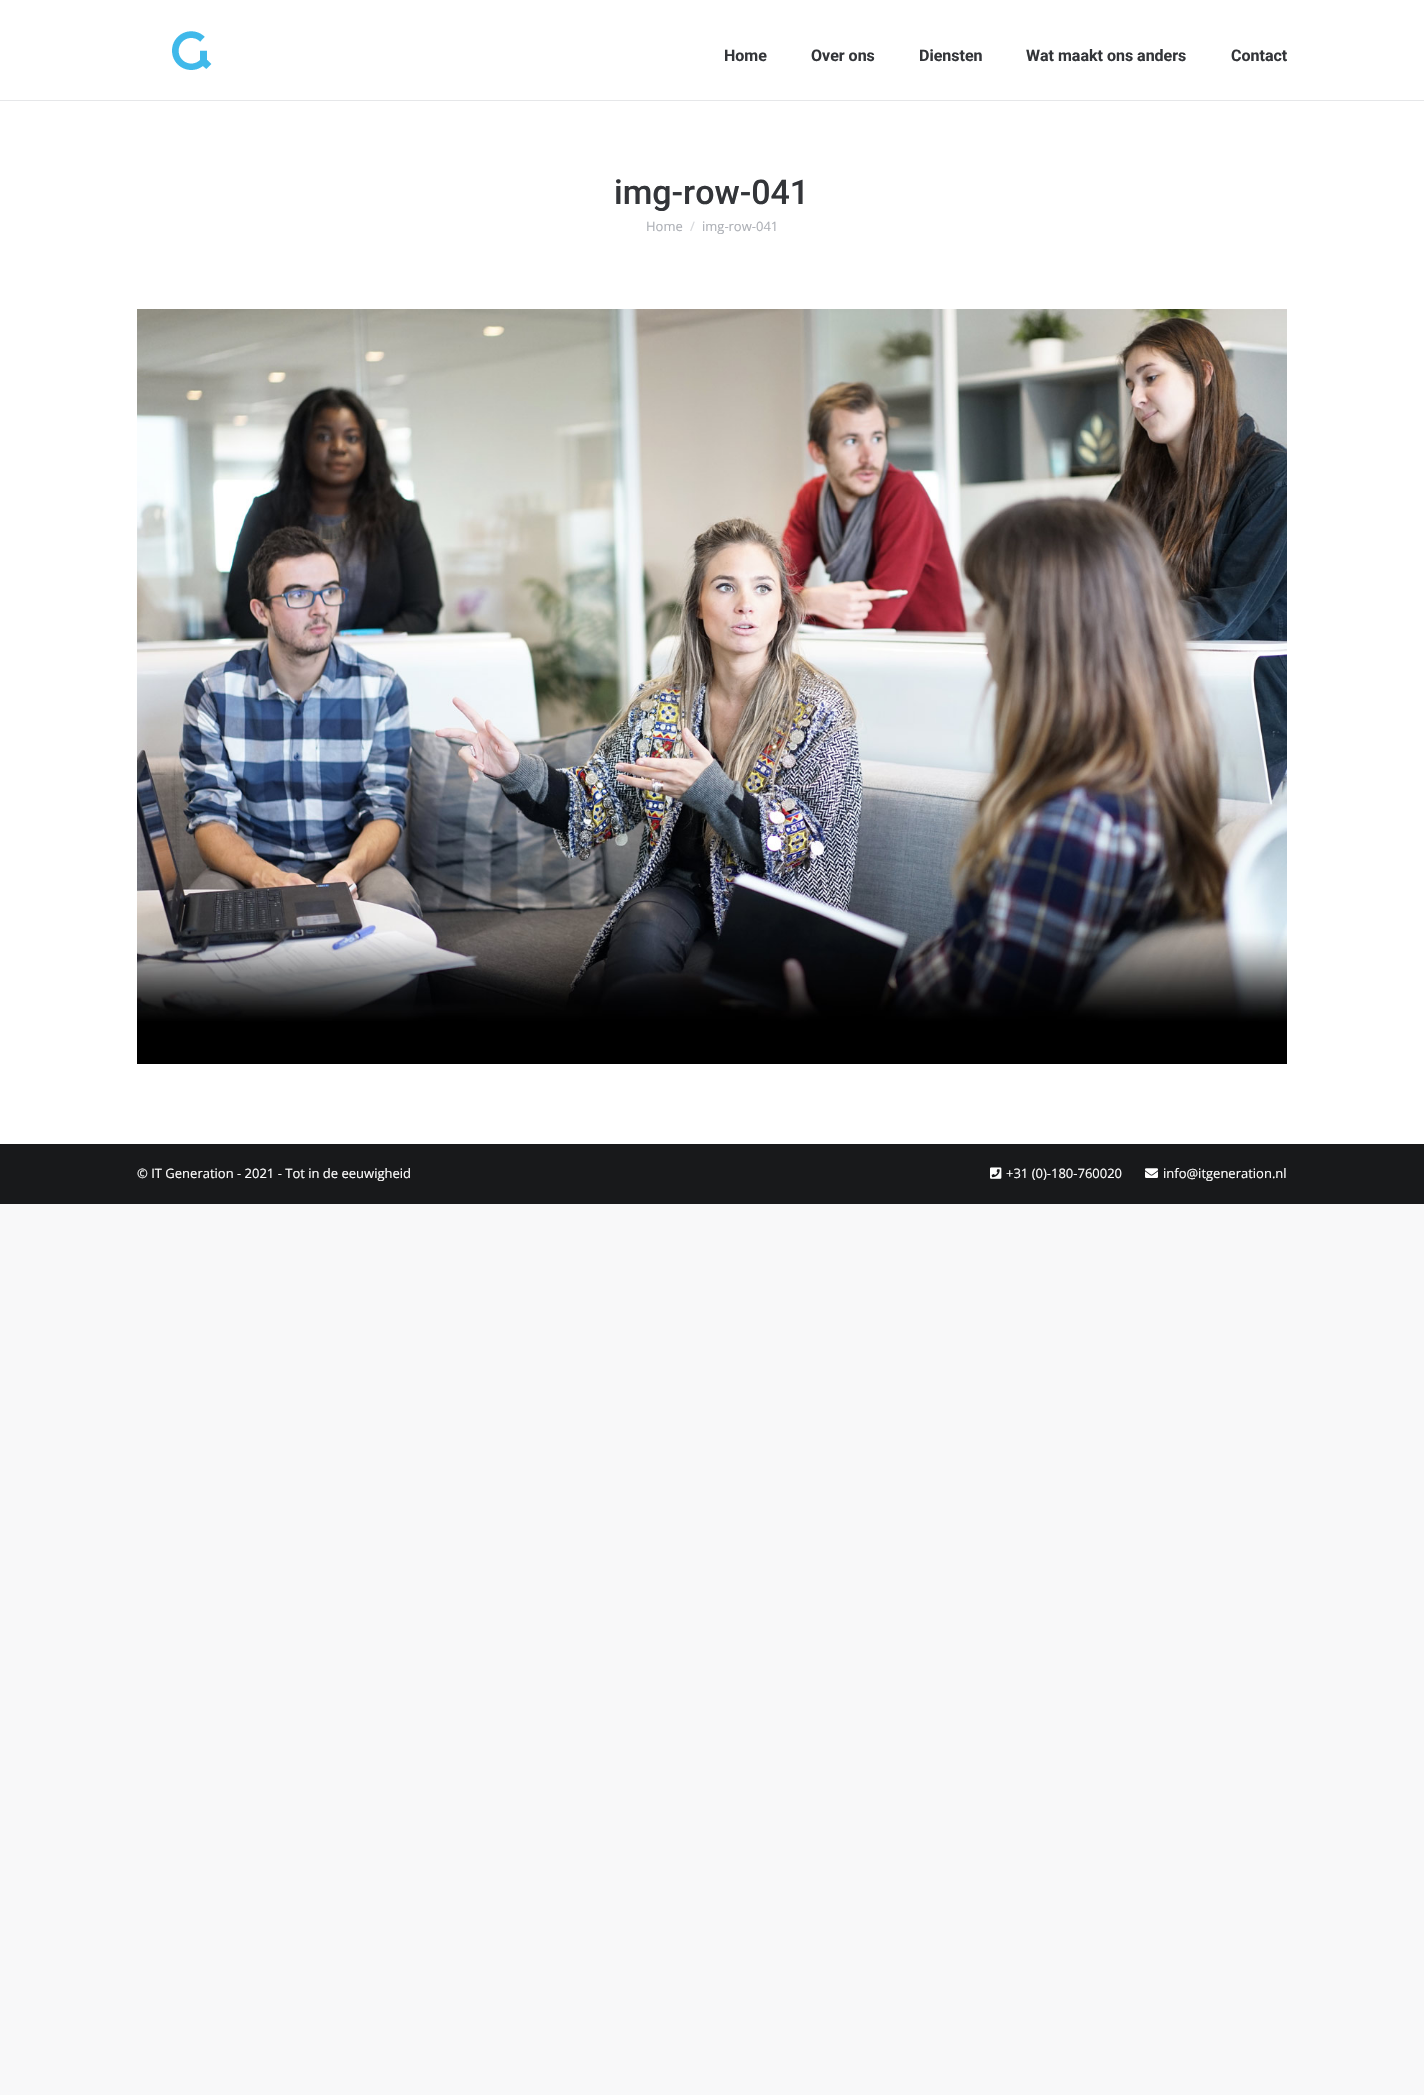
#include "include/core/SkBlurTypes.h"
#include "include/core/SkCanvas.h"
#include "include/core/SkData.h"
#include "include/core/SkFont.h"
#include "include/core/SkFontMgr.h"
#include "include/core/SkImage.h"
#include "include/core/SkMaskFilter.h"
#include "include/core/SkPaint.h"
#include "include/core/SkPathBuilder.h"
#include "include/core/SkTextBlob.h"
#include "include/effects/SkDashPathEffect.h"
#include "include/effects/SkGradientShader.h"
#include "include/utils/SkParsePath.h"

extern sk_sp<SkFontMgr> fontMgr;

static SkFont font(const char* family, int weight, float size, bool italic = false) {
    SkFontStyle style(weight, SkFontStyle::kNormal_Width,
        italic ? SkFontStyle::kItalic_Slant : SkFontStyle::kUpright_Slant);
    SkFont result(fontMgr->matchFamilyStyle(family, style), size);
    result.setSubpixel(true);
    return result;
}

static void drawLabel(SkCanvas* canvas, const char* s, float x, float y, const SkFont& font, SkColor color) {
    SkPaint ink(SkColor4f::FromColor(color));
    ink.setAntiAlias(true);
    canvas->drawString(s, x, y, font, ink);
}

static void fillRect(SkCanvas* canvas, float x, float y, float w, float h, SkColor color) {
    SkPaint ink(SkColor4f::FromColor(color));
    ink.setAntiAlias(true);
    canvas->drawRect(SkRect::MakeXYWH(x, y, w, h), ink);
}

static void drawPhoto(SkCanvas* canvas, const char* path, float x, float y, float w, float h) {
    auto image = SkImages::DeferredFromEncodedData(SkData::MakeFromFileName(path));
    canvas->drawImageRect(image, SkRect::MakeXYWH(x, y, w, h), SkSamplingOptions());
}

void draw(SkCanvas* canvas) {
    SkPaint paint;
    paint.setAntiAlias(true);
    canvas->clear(0xFFF8F8F9);
    fillRect(canvas, 0, 0, 1424, 1144, 0xFFFFFFFF);
    fillRect(canvas, 0, 100, 1424, 1, 0xFFE6E7E9);
    drawPhoto(canvas, "assets/img1.png", 172, 31, 40, 39);
    SkFont font1 = font("Roboto", 700, 16);
    drawLabel(canvas, "Home", 724, 61, font1, 0xFF333539);
    drawLabel(canvas, "Over ons", 811, 61, font1, 0xFF333539);
    drawLabel(canvas, "Diensten", 919, 61, font1, 0xFF333539);
    drawLabel(canvas, "Wat maakt ons anders", 1026, 61, font1, 0xFF333539);
    drawLabel(canvas, "Contact", 1231, 61, font1, 0xFF333539);
    SkFont font2 = font("Roboto", 500, 34);
    drawLabel(canvas, "img-row-041", 614, 204, font2, 0xFF333539);
    SkFont font3 = font("Open Sans", 400, 13);
    drawLabel(canvas, "Home", 646, 231, font3, 0xFFADB0B6);
    drawLabel(canvas, "/", 690, 231, font3, 0xFFD6D8DB);
    drawLabel(canvas, "img-row-041", 702, 231, font3, 0xFFADB0B6);
    drawPhoto(canvas, "assets/img2.png", 137, 309, 1150, 755);
    fillRect(canvas, 0, 1144, 1424, 60, 0xFF18191B);
    drawLabel(canvas, "© IT Generation - 2021 - Tot in de eeuwigheid", 137, 1178, font3, 0xFFFFFFFF);
    drawPhoto(canvas, "assets/img3.png", 990, 1167, 12, 12);
    drawLabel(canvas, "+31 (0)-180-760020", 1006, 1178, font3, 0xFFFFFFFF);
    drawPhoto(canvas, "assets/img4.png", 1145, 1168, 13, 10);
    drawLabel(canvas, "info@itgeneration.nl", 1163, 1178, font3, 0xFFFFFFFF);
}
